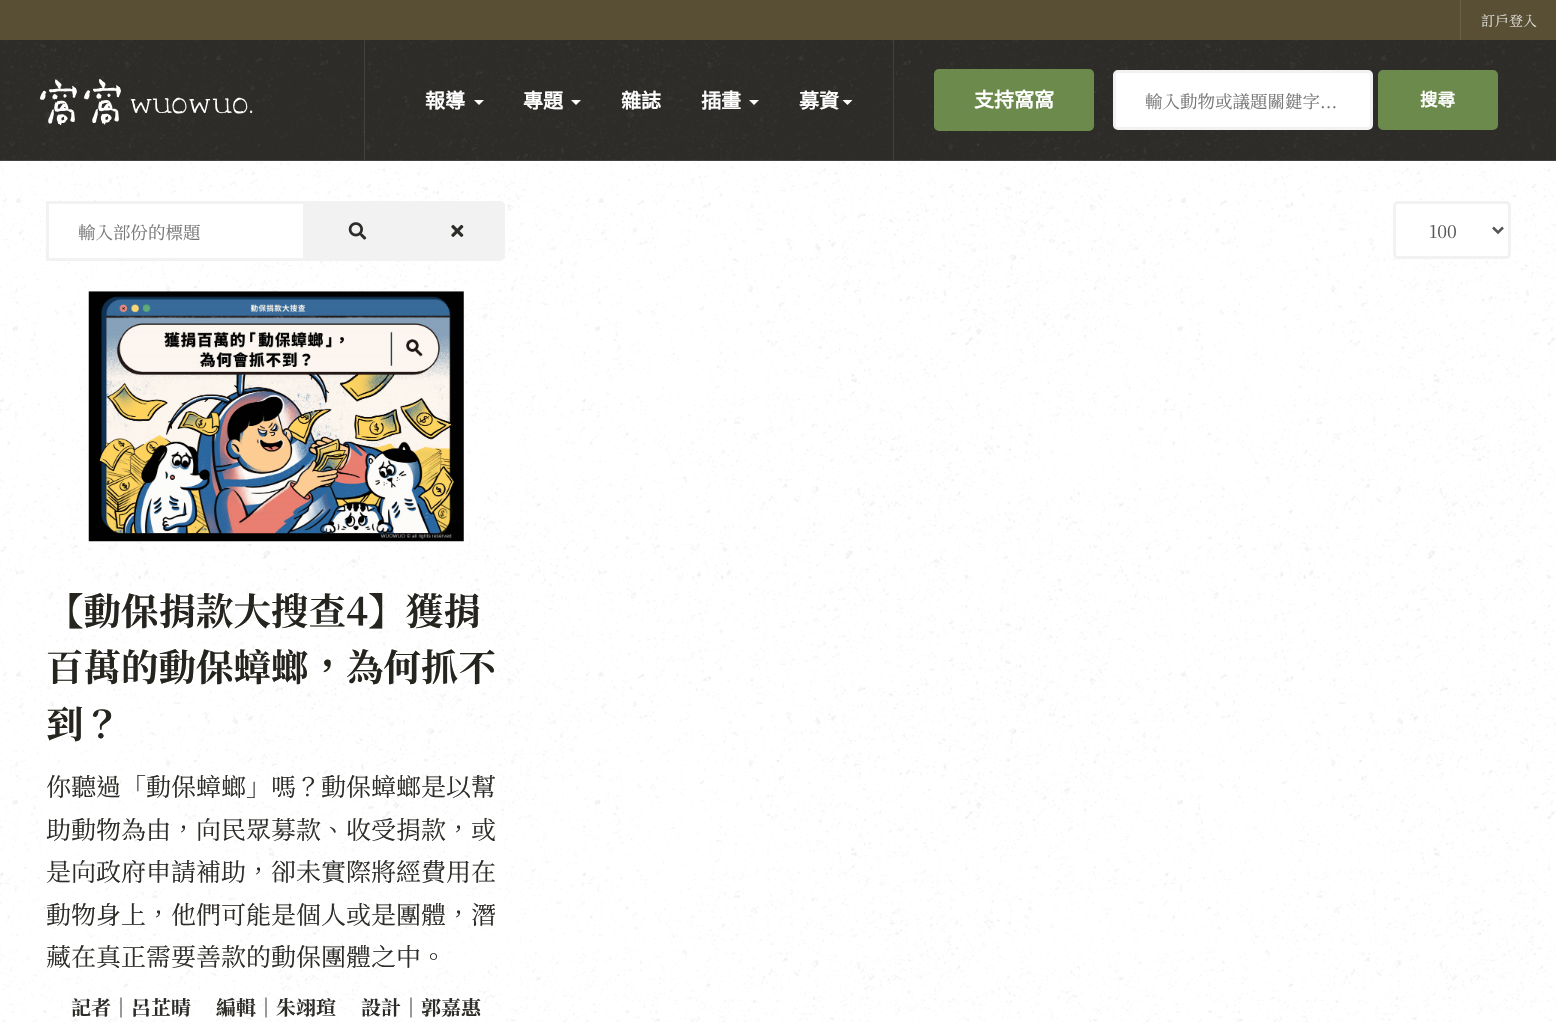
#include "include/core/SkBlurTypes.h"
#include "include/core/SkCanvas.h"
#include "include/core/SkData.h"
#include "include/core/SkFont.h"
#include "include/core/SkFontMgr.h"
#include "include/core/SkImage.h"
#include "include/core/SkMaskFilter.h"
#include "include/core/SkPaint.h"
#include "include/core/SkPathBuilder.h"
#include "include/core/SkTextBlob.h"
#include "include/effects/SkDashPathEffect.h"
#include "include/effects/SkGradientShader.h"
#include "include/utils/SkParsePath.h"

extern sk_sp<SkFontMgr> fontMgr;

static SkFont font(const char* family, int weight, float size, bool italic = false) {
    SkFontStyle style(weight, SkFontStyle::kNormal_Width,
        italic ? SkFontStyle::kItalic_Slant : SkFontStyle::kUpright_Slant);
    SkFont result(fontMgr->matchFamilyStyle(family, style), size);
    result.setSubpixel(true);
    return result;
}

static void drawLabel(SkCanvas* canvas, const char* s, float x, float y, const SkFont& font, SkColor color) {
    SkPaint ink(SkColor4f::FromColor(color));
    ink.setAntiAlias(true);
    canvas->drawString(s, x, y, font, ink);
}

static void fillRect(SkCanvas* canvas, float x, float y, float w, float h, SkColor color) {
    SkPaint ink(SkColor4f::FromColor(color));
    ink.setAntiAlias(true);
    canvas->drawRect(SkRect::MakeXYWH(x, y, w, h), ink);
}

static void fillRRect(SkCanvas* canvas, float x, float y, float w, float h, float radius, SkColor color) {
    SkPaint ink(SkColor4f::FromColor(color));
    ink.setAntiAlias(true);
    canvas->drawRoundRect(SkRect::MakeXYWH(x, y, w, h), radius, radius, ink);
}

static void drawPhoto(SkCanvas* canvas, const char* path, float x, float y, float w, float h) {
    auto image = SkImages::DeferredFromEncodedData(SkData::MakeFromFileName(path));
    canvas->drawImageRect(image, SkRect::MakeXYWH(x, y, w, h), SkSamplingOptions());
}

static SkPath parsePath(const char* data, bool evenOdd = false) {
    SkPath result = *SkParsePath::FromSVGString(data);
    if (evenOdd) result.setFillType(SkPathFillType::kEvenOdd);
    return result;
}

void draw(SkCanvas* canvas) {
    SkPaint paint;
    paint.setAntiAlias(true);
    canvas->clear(0xFF2D2C28);
    fillRect(canvas, 893, 40, 1, 120, 0xFF42413E);
    drawPhoto(canvas, "assets/img1.png", 2, 40, 1553, 121);
    fillRect(canvas, 0, 0, 1556, 40, 0xFF594F34);
    fillRect(canvas, 1460, 0, 1, 40, 0xFF6A6148);
    SkFont font1 = font("Noto Serif TC", 400, 14);
    drawLabel(canvas, "訂戶登入", 1481, 26, font1, 0xFFDEDCD6);
    fillRect(canvas, 0, 160, 1556, 1, 0x1AFFFFFF);
    drawPhoto(canvas, "assets/img2.png", 40, 79, 213, 46);
    fillRect(canvas, 364, 40, 1, 120, 0x1AFFFFFF);
    SkFont font2 = font("Noto Sans CJK TC", 700, 20);
    drawLabel(canvas, "報導", 425, 108, font2, 0xFFFFFFFF);
    paint.setColor(0xFFFFFFFF);
    canvas->drawPath(parsePath("M474 100H484L479 105Z"), paint);
    drawLabel(canvas, "專題", 523, 108, font2, 0xFFFFFFFF);
    canvas->drawPath(parsePath("M571 100H581L576 105Z"), paint);
    drawLabel(canvas, "雜誌", 621, 108, font2, 0xFFFFFFFF);
    drawLabel(canvas, "插畫", 701, 108, font2, 0xFFFFFFFF);
    canvas->drawPath(parsePath("M749 100H759L754 105Z"), paint);
    drawLabel(canvas, "募資", 799, 108, font2, 0xFFFFFFFF);
    canvas->drawPath(parsePath("M842.5 100H852.5L847.5 105Z"), paint);
    fillRRect(canvas, 934, 69, 160, 62, 5, 0xFF6C8A4B);
    drawLabel(canvas, "支持窩窩", 974, 107, font2, 0xFFFFFFFF);
    canvas->drawRoundRect(SkRect::MakeXYWH(1114.5f, 71.5f, 257, 57), 3.5f, 3.5f, paint);
    paint.setStroke(true);
    paint.setStrokeWidth(3);
    paint.setColor(0xFFF2F2F2);
    canvas->drawRoundRect(SkRect::MakeXYWH(1114.5f, 71.5f, 257, 57), 3.5f, 3.5f, paint);
    SkFont font3 = font("Noto Serif TC", 400, 17.5f);
    drawLabel(canvas, "輸入動物或議題關鍵字...", 1145, 108, font3, 0xFF777777);
    paint.setStroke(false);
    paint.setColor(0xFF6C8A4B);
    canvas->drawRoundRect(SkRect::MakeXYWH(1379.5f, 71.5f, 117, 57), 3.5f, 3.5f, paint);
    paint.setStroke(true);
    canvas->drawRoundRect(SkRect::MakeXYWH(1379.5f, 71.5f, 117, 57), 3.5f, 3.5f, paint);
    SkFont font4 = font("Noto Sans CJK TC", 700, 17.5f);
    drawLabel(canvas, "搜尋", 1420, 106, font4, 0xFFFFFFFF);
    fillRect(canvas, 0, 161, 1556, 861, 0xFFFFFFFF);
    drawPhoto(canvas, "assets/img3.png", 0, 161, 1556, 861);
    paint.setStroke(false);
    paint.setColor(0xFFFFFFFF);
    canvas->drawRect(SkRect::MakeXYWH(47.5f, 202.5f, 257, 57), paint);
    paint.setStroke(true);
    paint.setColor(0xFFF2F2F2);
    canvas->drawRect(SkRect::MakeXYWH(47.5f, 202.5f, 257, 57), paint);
    drawLabel(canvas, "輸入部份的標題", 78, 239, font3, 0xFF777777);
    fillRect(canvas, 306, 201, 103, 60, 0xFFF2F2F2);
    drawPhoto(canvas, "assets/img4.png", 348, 222, 19, 18);
    paint.setStroke(false);
    canvas->drawPath(parsePath("M410.5 202.5H500C502 202.5 503.5 204 503.5 206V256C503.5 258 502 259.5 500 259.5H410.5Z"), paint);
    paint.setStroke(true);
    canvas->drawPath(parsePath("M410.5 202.5H500C502 202.5 503.5 204 503.5 206V256C503.5 258 502 259.5 500 259.5H410.5Z"), paint);
    drawPhoto(canvas, "assets/img5.png", 451, 224, 13, 13);
    paint.setStroke(false);
    paint.setColor(0xFFFFFFFF);
    canvas->drawRoundRect(SkRect::MakeXYWH(1394.5f, 202.5f, 115, 55), 3.5f, 3.5f, paint);
    paint.setStroke(true);
    paint.setColor(0xFFF2F2F2);
    canvas->drawRoundRect(SkRect::MakeXYWH(1394.5f, 202.5f, 115, 55), 3.5f, 3.5f, paint);
    paint.setStrokeWidth(2.5f);
    paint.setColor(0xFF555555);
    canvas->drawPath(parsePath("M1493 227.5L1498 232.5L1503 227.5"), paint);
    drawLabel(canvas, "100", 1429, 238, font3, 0xFF555555);
    drawPhoto(canvas, "assets/img6.png", 88, 291, 376, 251);
    SkFont font5 = font("Noto Serif TC", 700, 37.5f);
    drawLabel(canvas, "【動保捐款大搜查4】獲捐", 46, 625, font5, 0xFF25241F);
    drawLabel(canvas, "百萬的動保蟑螂，為何抓不", 46, 681, font5, 0xFF25241F);
    drawLabel(canvas, "到？", 46, 738, font5, 0xFF25241F);
    SkFont font6 = font("Noto Serif TC", 400, 25);
    drawLabel(canvas, "你聽過「動保蟑螂」嗎？動保蟑螂是以幫", 46, 796, font6, 0xFF2D2C28);
    drawLabel(canvas, "助動物為由，向民眾募款、收受捐款，或", 46, 839, font6, 0xFF2D2C28);
    drawLabel(canvas, "是向政府申請補助，卻未實際將經費用在", 46, 881, font6, 0xFF2D2C28);
    drawLabel(canvas, "動物身上，他們可能是個人或是團體，潛", 46, 924, font6, 0xFF2D2C28);
    drawLabel(canvas, "藏在真正需要善款的動保團體之中。", 46, 966, font6, 0xFF2D2C28);
    SkFont font7 = font("Noto Serif TC", 700, 20);
    drawLabel(canvas, "記者｜呂芷晴     編輯｜朱翊瑄     設計｜郭嘉惠", 71, 1015, font7, 0xFF2D2C28);
}
